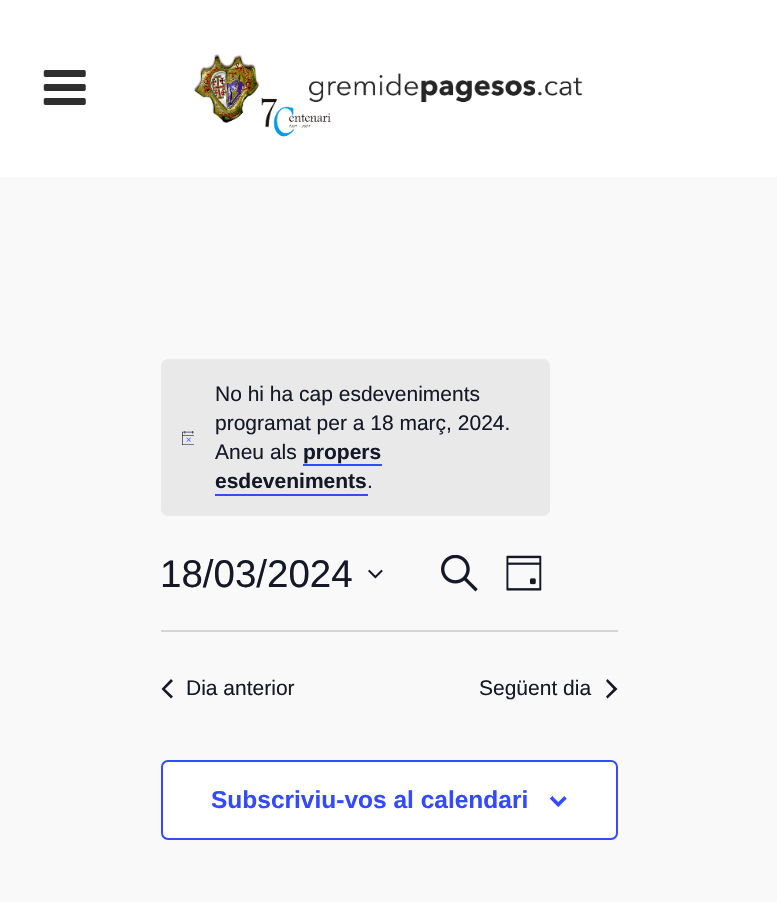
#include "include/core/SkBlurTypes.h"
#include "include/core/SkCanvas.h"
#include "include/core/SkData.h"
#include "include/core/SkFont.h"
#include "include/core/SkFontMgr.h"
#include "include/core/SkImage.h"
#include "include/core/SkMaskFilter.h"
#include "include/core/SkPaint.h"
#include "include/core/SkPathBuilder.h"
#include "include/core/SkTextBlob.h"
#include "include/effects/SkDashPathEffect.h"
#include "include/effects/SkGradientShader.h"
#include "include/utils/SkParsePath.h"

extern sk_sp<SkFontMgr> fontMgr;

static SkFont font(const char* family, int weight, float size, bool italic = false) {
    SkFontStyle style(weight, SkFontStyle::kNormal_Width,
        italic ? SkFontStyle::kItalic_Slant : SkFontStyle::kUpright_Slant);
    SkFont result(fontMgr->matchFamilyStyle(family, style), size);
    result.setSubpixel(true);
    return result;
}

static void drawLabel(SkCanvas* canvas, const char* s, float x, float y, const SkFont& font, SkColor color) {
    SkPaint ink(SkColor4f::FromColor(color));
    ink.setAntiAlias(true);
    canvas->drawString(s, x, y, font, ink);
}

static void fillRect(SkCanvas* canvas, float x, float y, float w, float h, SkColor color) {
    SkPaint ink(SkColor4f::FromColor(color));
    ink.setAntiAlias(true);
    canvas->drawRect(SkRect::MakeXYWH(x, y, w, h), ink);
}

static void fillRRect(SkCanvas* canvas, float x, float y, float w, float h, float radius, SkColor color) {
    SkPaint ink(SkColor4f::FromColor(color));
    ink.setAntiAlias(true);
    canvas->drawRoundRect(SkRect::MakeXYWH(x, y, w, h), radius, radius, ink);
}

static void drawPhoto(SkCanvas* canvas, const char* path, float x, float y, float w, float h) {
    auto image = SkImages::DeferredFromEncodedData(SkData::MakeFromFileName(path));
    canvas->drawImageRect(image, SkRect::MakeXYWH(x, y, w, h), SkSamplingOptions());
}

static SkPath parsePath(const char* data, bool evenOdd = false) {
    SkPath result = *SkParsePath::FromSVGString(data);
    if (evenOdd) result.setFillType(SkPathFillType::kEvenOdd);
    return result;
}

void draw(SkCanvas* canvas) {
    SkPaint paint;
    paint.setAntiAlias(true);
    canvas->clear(0xFFF9F9F9);
    fillRect(canvas, 0, 0, 777, 177, 0xFFFFFFFF);
    drawPhoto(canvas, "assets/img1.png", 43, 70, 43, 35);
    drawPhoto(canvas, "assets/img2.png", 194, 54, 389, 83);
    fillRRect(canvas, 161, 359, 389, 157, 7, 0xFFE9E9EA);
    drawPhoto(canvas, "assets/img3.png", 182, 431, 12, 14);
    SkFont font1 = font("Liberation Sans", 400, 21);
    drawLabel(canvas, "No hi ha cap esdeveniments", 215, 401, font1, 0xFF141827);
    drawLabel(canvas, "programat per a 18 març, 2024.", 215, 430, font1, 0xFF141827);
    drawLabel(canvas, "Aneu als", 215, 459, font1, 0xFF141827);
    SkFont font2 = font("Liberation Sans", 700, 21);
    drawLabel(canvas, "propers", 303, 459, font2, 0xFF141827);
    fillRect(canvas, 303, 464, 79, 2, 0xFF334AFF);
    drawLabel(canvas, "esdeveniments", 215, 488, font2, 0xFF141827);
    fillRect(canvas, 215, 494, 153, 2, 0xFF334AFF);
    drawLabel(canvas, ".", 367, 488, font1, 0xFF141827);
    SkFont font3 = font("Liberation Sans", 400, 38.5f);
    drawLabel(canvas, "18/03/2024", 160, 587, font3, 0xFF141827);
    drawPhoto(canvas, "assets/img4.png", 368, 569, 15, 10);
    drawPhoto(canvas, "assets/img5.png", 441, 555, 37, 37);
    drawPhoto(canvas, "assets/img6.png", 506, 555, 36, 36);
    fillRect(canvas, 161, 630, 457, 2, 0xFFD5D5D5);
    paint.setColor(0xFF141827);
    canvas->drawPath(parsePath("M173 696.5L171 698.5L161.5 689L171 679L173 681L165 689Z"), paint);
    drawLabel(canvas, "Dia anterior", 186, 695, font1, 0xFF141827);
    drawLabel(canvas, "Següent dia", 479, 695, font1, 0xFF141827);
    canvas->drawPath(parsePath("M606 681L607.5 679L617.5 689L607.5 698.5L606 696.5L613.5 689Z"), paint);
    paint.setColor(0xFFFFFFFF);
    canvas->drawRoundRect(SkRect::MakeXYWH(162, 761, 455, 78), 6, 6, paint);
    paint.setStroke(true);
    paint.setStrokeWidth(2);
    paint.setColor(0xFF334AFF);
    canvas->drawRoundRect(SkRect::MakeXYWH(162, 761, 455, 78), 6, 6, paint);
    SkFont font4 = font("Liberation Sans", 700, 24.5f);
    drawLabel(canvas, "Subscriviu-vos al calendari", 211, 808, font4, 0xFF334AFF);
    drawPhoto(canvas, "assets/img7.png", 550, 796, 17, 11);
}
